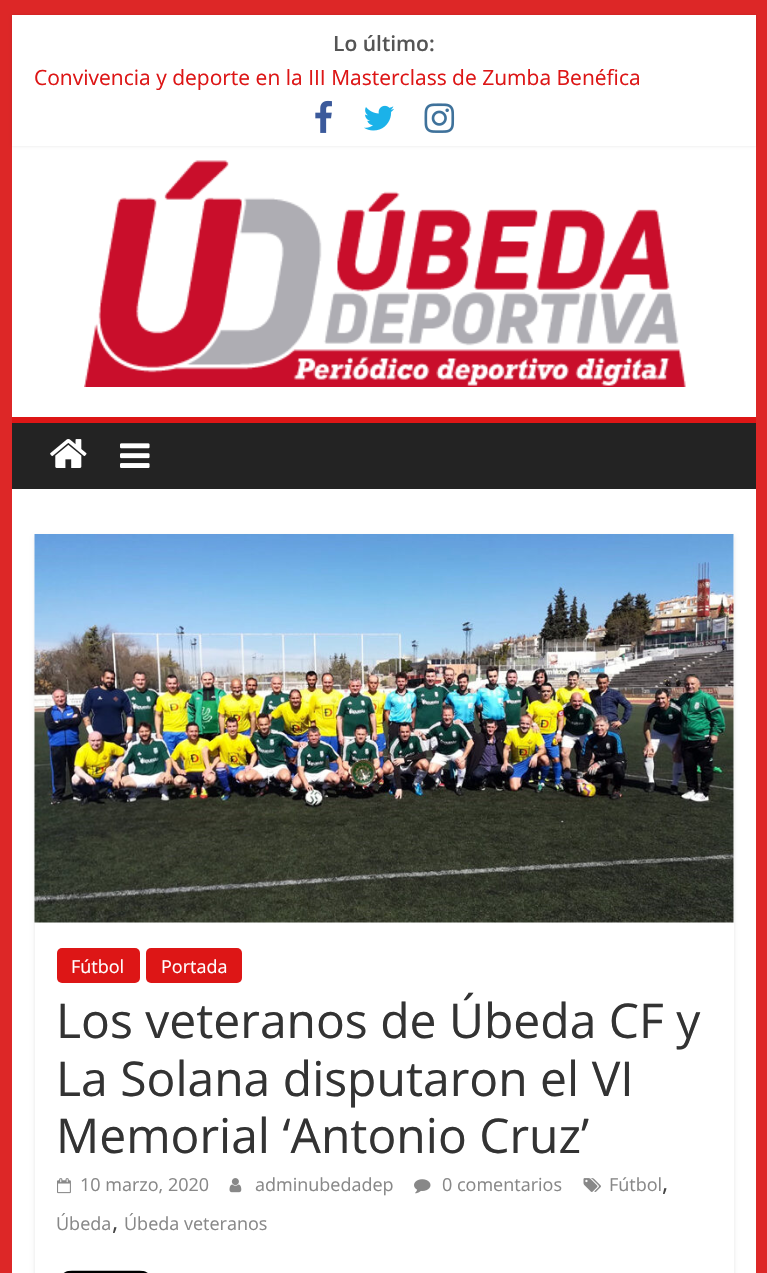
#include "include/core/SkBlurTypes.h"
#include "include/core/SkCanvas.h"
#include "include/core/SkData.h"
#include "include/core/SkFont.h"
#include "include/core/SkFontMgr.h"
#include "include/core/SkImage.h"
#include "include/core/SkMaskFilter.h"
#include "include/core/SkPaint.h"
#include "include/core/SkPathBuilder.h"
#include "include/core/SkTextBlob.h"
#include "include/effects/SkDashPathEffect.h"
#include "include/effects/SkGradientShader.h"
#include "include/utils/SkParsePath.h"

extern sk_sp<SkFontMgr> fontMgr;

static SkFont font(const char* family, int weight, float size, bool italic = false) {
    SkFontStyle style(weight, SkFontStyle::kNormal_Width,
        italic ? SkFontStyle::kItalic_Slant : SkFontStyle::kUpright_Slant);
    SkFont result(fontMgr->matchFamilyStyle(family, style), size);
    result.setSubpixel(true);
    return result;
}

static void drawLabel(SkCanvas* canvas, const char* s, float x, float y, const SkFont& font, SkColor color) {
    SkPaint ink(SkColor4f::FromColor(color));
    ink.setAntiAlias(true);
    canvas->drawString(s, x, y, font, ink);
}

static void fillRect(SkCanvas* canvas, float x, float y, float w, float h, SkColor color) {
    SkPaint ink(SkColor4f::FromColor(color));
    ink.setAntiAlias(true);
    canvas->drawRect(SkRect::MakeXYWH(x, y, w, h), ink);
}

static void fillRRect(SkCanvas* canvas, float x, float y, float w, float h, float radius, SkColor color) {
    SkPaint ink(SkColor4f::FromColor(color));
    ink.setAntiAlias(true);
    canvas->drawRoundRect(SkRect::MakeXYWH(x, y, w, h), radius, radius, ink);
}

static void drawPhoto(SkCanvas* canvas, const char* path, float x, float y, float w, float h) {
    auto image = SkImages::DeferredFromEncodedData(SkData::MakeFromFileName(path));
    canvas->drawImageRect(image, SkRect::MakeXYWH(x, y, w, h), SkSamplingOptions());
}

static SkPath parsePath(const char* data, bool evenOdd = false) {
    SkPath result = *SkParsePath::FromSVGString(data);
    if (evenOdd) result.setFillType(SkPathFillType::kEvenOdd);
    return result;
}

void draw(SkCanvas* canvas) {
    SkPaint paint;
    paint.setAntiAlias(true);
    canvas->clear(0xFFDD2727);
    fillRect(canvas, 12, 146, 744, 271, 0xFFFFFFFF);
    paint.setColor(0x1A000000);
    paint.setMaskFilter(SkMaskFilter::MakeBlur(kNormal_SkBlurStyle, 1.5f));
    canvas->drawRect(SkRect::MakeXYWH(12, 15, 744, 131), paint);
    paint.setMaskFilter(nullptr);
    fillRect(canvas, 12, 15, 744, 131, 0xFFFFFFFF);
    SkFont font1 = font("Open Sans", 600, 21);
    drawLabel(canvas, "Lo último:", 333, 51, font1, 0xFF555555);
    SkFont font2 = font("Open Sans", 400, 21);
    drawLabel(canvas, "Convivencia y deporte en la III Masterclass de Zumba Benéfica", 34, 85, font2, 0xFFDD1616);
    drawPhoto(canvas, "assets/img1.png", 315, 100, 17, 33);
    drawPhoto(canvas, "assets/img2.png", 364, 105, 30, 26);
    drawPhoto(canvas, "assets/img3.png", 424, 103, 31, 30);
    drawPhoto(canvas, "assets/img4.png", 84, 160, 602, 227);
    fillRect(canvas, 12, 423, 744, 66, 0xFF232323);
    fillRect(canvas, 12, 417, 744, 6, 0xFFDD1616);
    drawPhoto(canvas, "assets/img5.png", 50, 439, 37, 29);
    drawPhoto(canvas, "assets/img6.png", 120, 443, 30, 25);
    fillRect(canvas, 12, 489, 744, 784, 0xFFFFFFFF);
    canvas->save();
    canvas->clipPath(parsePath("M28 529H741V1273H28ZM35 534H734V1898H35Z", true), true);
    paint.setMaskFilter(SkMaskFilter::MakeBlur(kNormal_SkBlurStyle, 2));
    canvas->drawRect(SkRect::MakeXYWH(35, 536, 699, 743), paint);
    paint.setMaskFilter(nullptr);
    canvas->restore();
    drawPhoto(canvas, "assets/img7.png", 34, 534, 700, 389);
    fillRRect(canvas, 57, 948, 83, 35, 5, 0xFFDD1616);
    SkFont font3 = font("Open Sans", 400, 18);
    drawLabel(canvas, "Fútbol", 71, 973, font3, 0xFFFFFFFF);
    fillRRect(canvas, 146, 948, 96, 35, 5, 0xFFDD1616);
    drawLabel(canvas, "Portada", 161, 973, font3, 0xFFFFFFFF);
    SkFont font4 = font("Open Sans", 400, 48);
    drawLabel(canvas, "Los veteranos de Úbeda CF y", 56, 1038, font4, 0xFF333333);
    drawLabel(canvas, "La Solana disputaron el VI", 56, 1096, font4, 0xFF333333);
    drawLabel(canvas, "Memorial ‘Antonio Cruz’", 56, 1153, font4, 0xFF333333);
    drawPhoto(canvas, "assets/img8.png", 583, 1178, 18, 14);
    drawLabel(canvas, "Fútbol", 609, 1191, font3, 0xFF888888);
    SkFont font5 = font("Open Sans", 400, 24);
    drawLabel(canvas, ",", 662, 1191, font5, 0xFF444444);
    drawLabel(canvas, "Úbeda", 56, 1230, font3, 0xFF888888);
    drawLabel(canvas, ",", 112, 1230, font5, 0xFF444444);
    drawLabel(canvas, "Úbeda veteranos", 124, 1230, font3, 0xFF888888);
    drawPhoto(canvas, "assets/img9.png", 57, 1178, 14, 16);
    drawLabel(canvas, "10 marzo, 2020", 80, 1191, font3, 0xFF888888);
    drawPhoto(canvas, "assets/img10.png", 229, 1178, 13, 15);
    drawLabel(canvas, "adminubedadep", 255, 1191, font3, 0xFF888888);
    drawPhoto(canvas, "assets/img11.png", 414, 1179, 17, 15);
    drawLabel(canvas, "0 comentarios", 442, 1191, font3, 0xFF888888);
    drawPhoto(canvas, "assets/img12.png", 63, 1270, 85, 3);
}
